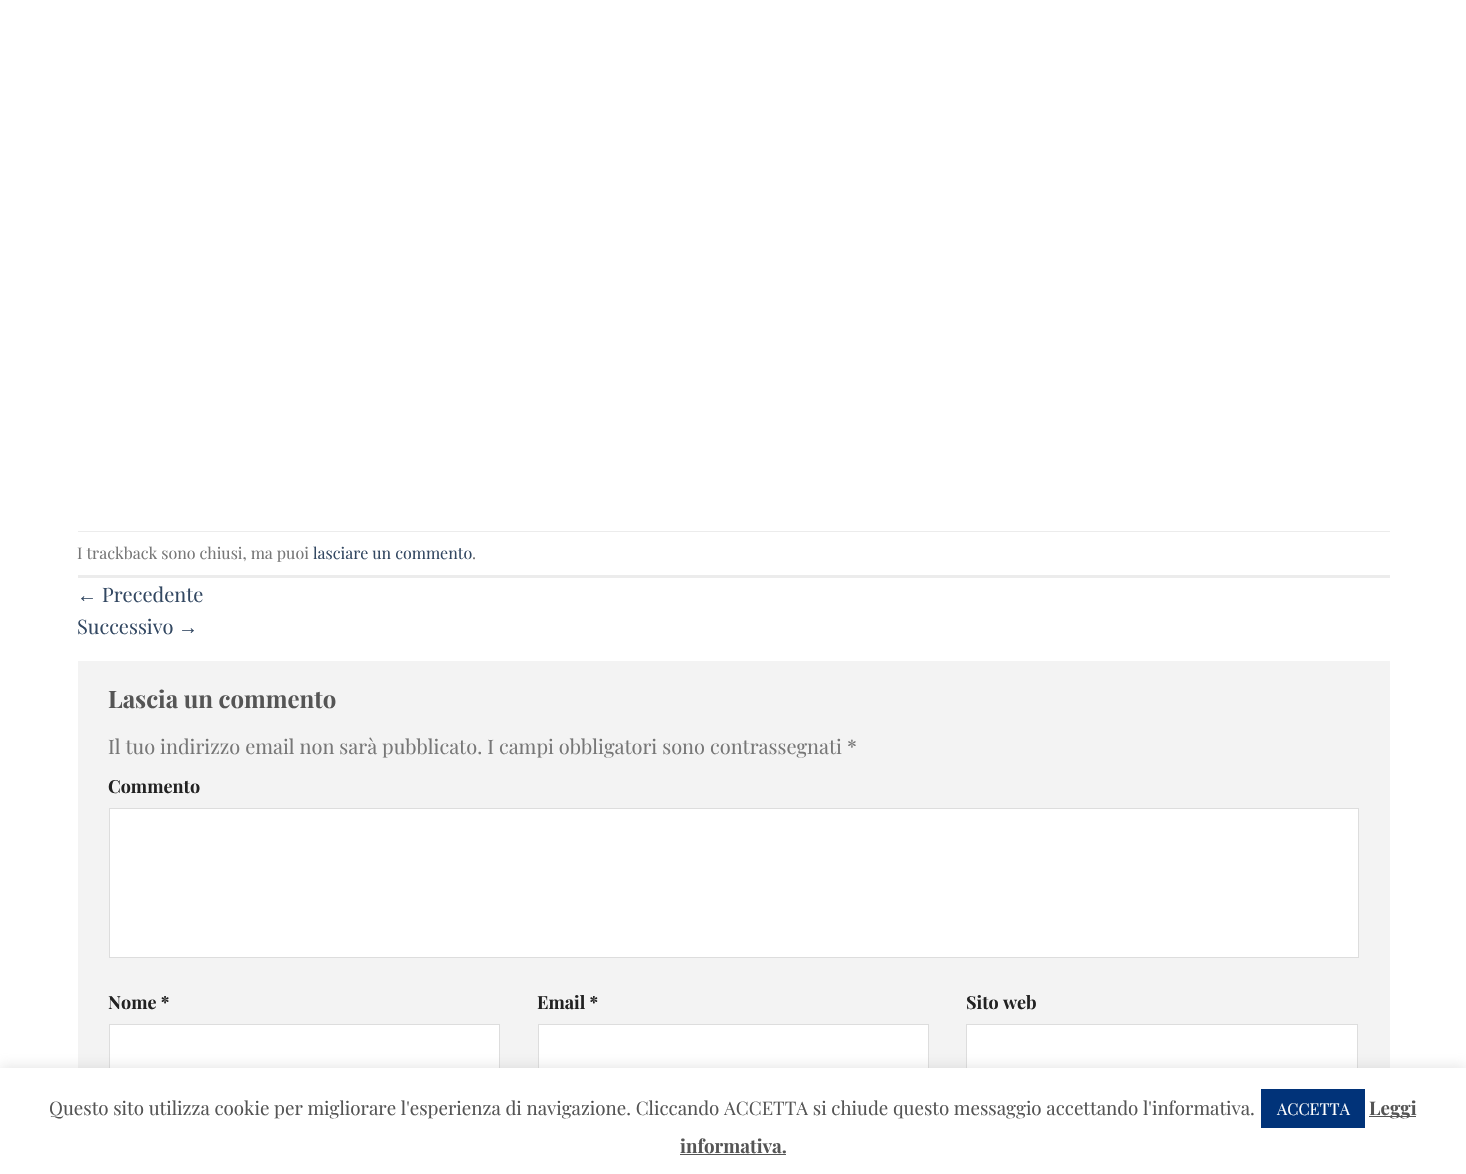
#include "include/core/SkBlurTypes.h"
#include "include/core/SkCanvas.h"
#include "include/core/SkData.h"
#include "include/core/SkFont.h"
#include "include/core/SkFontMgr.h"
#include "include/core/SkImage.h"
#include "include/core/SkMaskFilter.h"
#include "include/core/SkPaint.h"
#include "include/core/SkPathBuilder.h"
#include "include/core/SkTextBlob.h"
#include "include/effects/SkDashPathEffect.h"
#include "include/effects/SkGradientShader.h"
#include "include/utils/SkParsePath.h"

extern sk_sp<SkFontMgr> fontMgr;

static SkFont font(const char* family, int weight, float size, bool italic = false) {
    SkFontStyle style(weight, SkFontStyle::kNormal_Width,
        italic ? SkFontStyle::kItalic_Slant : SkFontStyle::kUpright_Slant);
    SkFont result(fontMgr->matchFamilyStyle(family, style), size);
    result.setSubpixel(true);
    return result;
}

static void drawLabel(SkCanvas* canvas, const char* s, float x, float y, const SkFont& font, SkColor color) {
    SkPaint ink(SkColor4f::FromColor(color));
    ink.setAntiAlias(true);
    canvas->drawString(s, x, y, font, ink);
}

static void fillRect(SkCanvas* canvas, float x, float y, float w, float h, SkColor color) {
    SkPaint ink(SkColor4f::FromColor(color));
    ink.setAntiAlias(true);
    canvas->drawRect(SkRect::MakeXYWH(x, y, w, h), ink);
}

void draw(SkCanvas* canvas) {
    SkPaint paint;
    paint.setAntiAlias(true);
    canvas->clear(0xFFFFFFFF);
    fillRect(canvas, 78, 531, 1312, 1, 0xFFECECEC);
    fillRect(canvas, 78, 575, 1312, 3, 0xFFECECEC);
    SkFont font1 = font("Playfair Display", 400, 16);
    drawLabel(canvas, "I trackback sono chiusi, ma puoi", 77, 559, font1, 0xFF777777);
    drawLabel(canvas, "lasciare un commento", 313, 559, font1, 0xFF334862);
    drawLabel(canvas, ".", 472, 559, font1, 0xFF777777);
    SkFont font2 = font("Liberation Sans", 400, 20);
    drawLabel(canvas, "←", 77, 602, font2, 0xFF334862);
    SkFont font3 = font("Playfair Display", 400, 20);
    drawLabel(canvas, "Precedente", 102, 602, font3, 0xFF334862);
    drawLabel(canvas, "Successivo", 77, 634, font3, 0xFF334862);
    drawLabel(canvas, "→", 178, 634, font2, 0xFF334862);
    fillRect(canvas, 78, 661, 1312, 407, 0xFFF3F3F3);
    SkFont font4 = font("Playfair Display", 700, 24);
    drawLabel(canvas, "Lascia un commento", 108, 708, font4, 0xFF555555);
    drawLabel(canvas, "Il tuo indirizzo email non sarà pubblicato. I campi obbligatori sono contrassegnati *", 108, 754, font3, 0xFF777777);
    SkFont font5 = font("Playfair Display", 700, 18);
    drawLabel(canvas, "Commento", 108, 793, font5, 0xFF222222);
    paint.setColor(0xFFFFFFFF);
    canvas->drawRect(SkRect::MakeXYWH(109.5f, 808.5f, 1249, 149), paint);
    paint.setStroke(true);
    paint.setStrokeWidth(1);
    paint.setColor(0xFFDDDDDD);
    canvas->drawRect(SkRect::MakeXYWH(109.5f, 808.5f, 1249, 149), paint);
    drawLabel(canvas, "Nome *", 108, 1009, font5, 0xFF222222);
    fillRect(canvas, 110, 1025, 389, 43, 0xFFFFFFFF);
    canvas->drawRect(SkRect::MakeXYWH(109.5f, 1024.5f, 390, 48), paint);
    drawLabel(canvas, "Email *", 537, 1009, font5, 0xFF222222);
    fillRect(canvas, 539, 1025, 389, 43, 0xFFFFFFFF);
    canvas->drawRect(SkRect::MakeXYWH(538.5f, 1024.5f, 390, 48), paint);
    drawLabel(canvas, "Sito web", 966, 1009, font5, 0xFF222222);
    fillRect(canvas, 967, 1025, 390, 43, 0xFFFFFFFF);
    canvas->drawRect(SkRect::MakeXYWH(966.5f, 1024.5f, 391, 48), paint);
    paint.setStroke(false);
    paint.setColor(0x4DACABAB);
    paint.setMaskFilter(SkMaskFilter::MakeBlur(kNormal_SkBlurStyle, 6));
    canvas->drawRect(SkRect::MakeXYWH(0, 1066, 1466, 108), paint);
    paint.setMaskFilter(nullptr);
    fillRect(canvas, 0, 1068, 1466, 106, 0xFFFFFFFF);
    SkFont font6 = font("Playfair Display", 400, 18.75f);
    drawLabel(canvas, "Questo sito utilizza cookie per migliorare l'esperienza di navigazione. Cliccando ACCETTA si chiude questo messaggio accettando l'informativa.", 49, 1115, font6, 0xFF555555);
    fillRect(canvas, 1261, 1089, 104, 39, 0xFF013379);
    SkFont font7 = font("Playfair Display", 400, 16.25f);
    drawLabel(canvas, "ACCETTA", 1277, 1115, font7, 0xFFFFFFFF);
    fillRect(canvas, 1369, 1116, 47, 1, 0xFF555555);
    SkFont font8 = font("Playfair Display", 700, 18.75f);
    drawLabel(canvas, "Leggi", 1369, 1115, font8, 0xFF555555);
    drawLabel(canvas, "informativa.", 680, 1153, font8, 0xFF555555);
    fillRect(canvas, 680, 1154, 106, 1, 0xFF555555);
}
